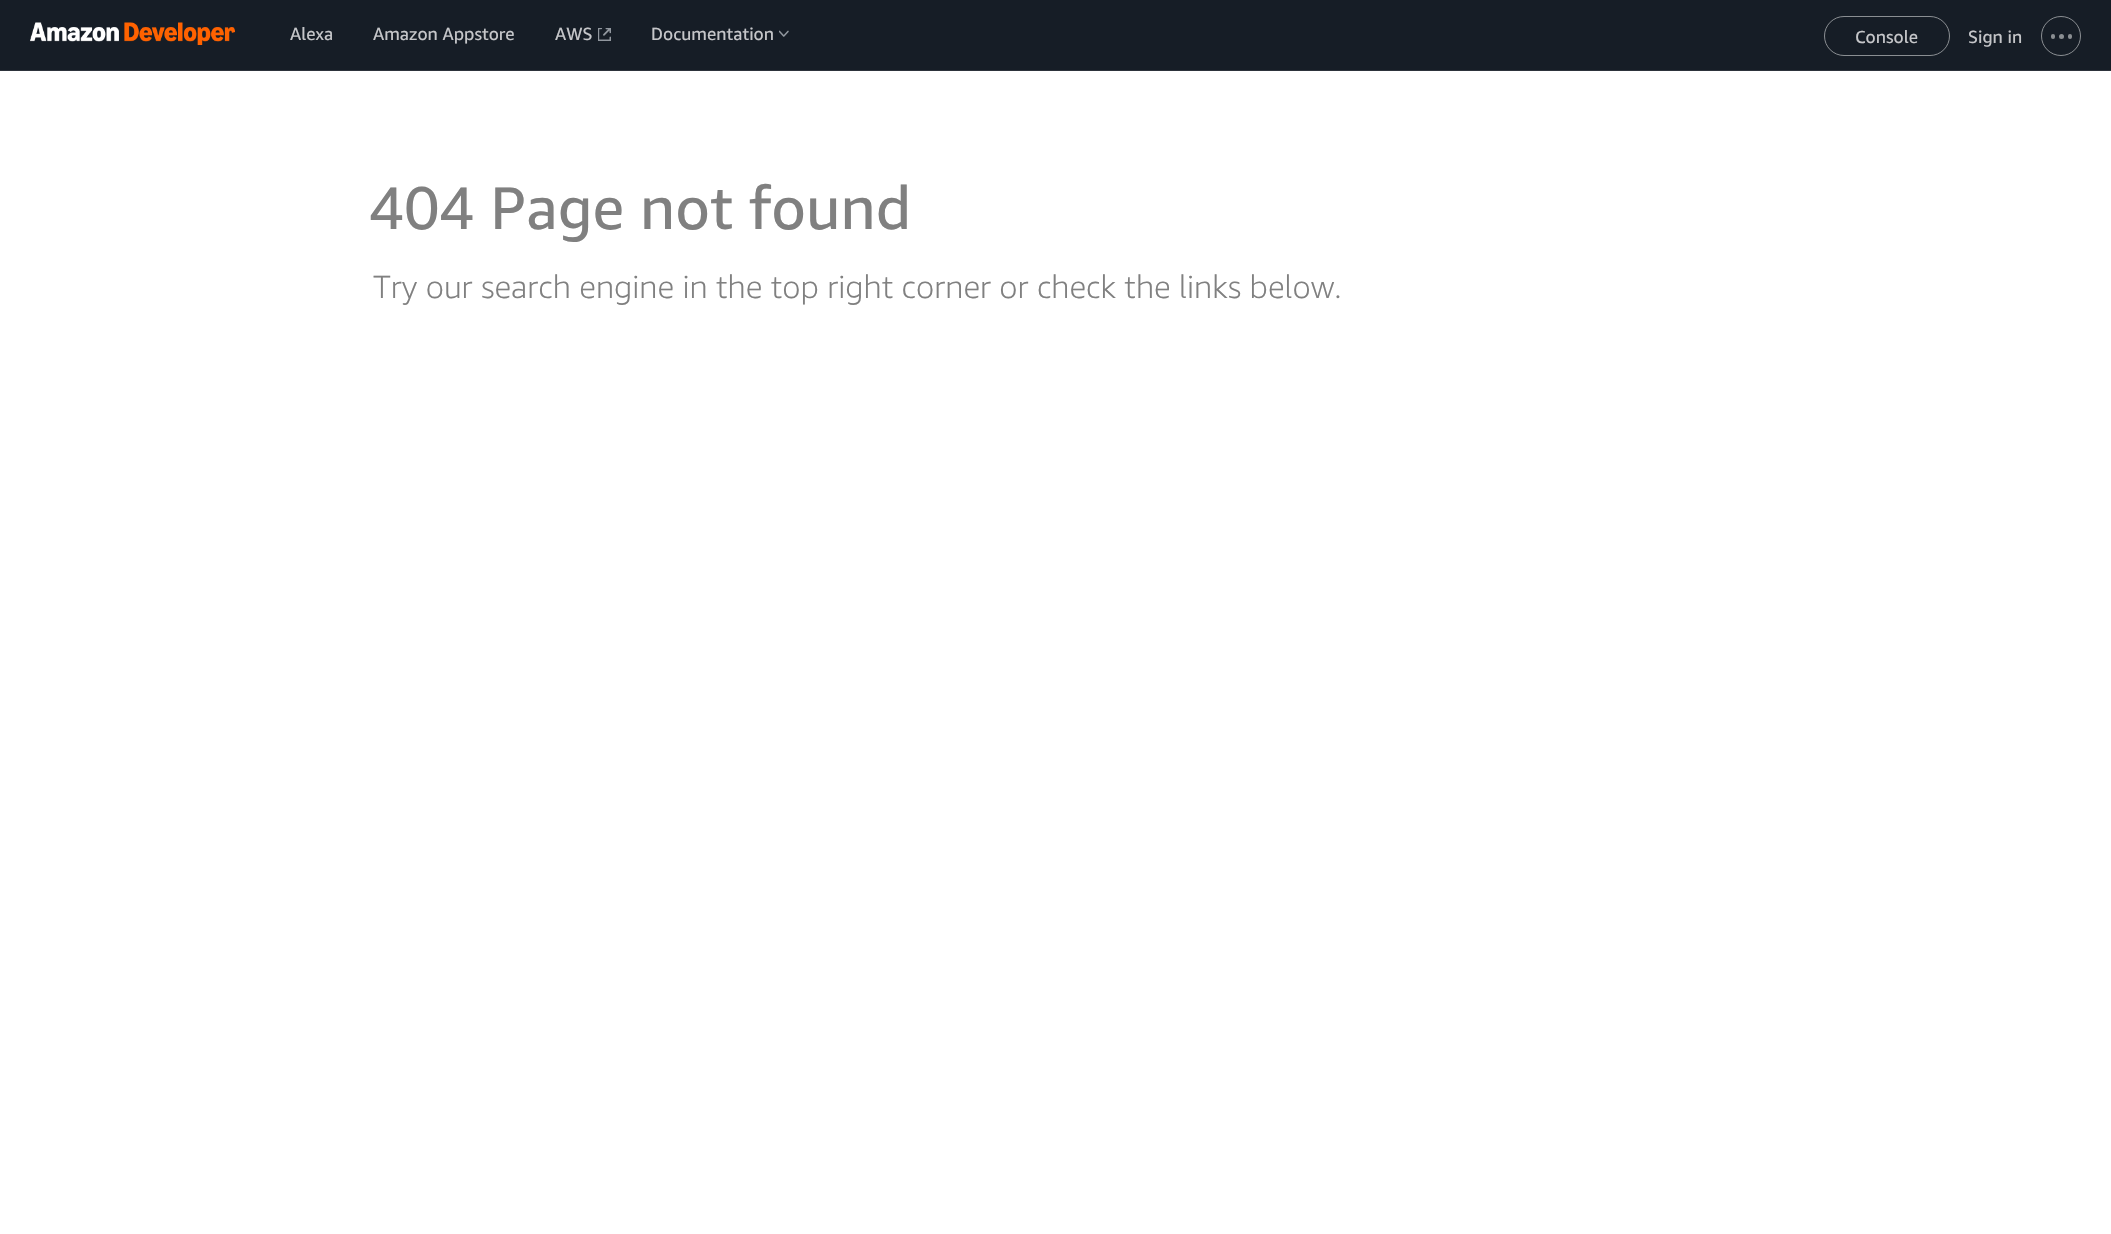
#include "include/core/SkBlurTypes.h"
#include "include/core/SkCanvas.h"
#include "include/core/SkData.h"
#include "include/core/SkFont.h"
#include "include/core/SkFontMgr.h"
#include "include/core/SkImage.h"
#include "include/core/SkMaskFilter.h"
#include "include/core/SkPaint.h"
#include "include/core/SkPathBuilder.h"
#include "include/core/SkTextBlob.h"
#include "include/effects/SkDashPathEffect.h"
#include "include/effects/SkGradientShader.h"
#include "include/utils/SkParsePath.h"

extern sk_sp<SkFontMgr> fontMgr;

static SkFont font(const char* family, int weight, float size, bool italic = false) {
    SkFontStyle style(weight, SkFontStyle::kNormal_Width,
        italic ? SkFontStyle::kItalic_Slant : SkFontStyle::kUpright_Slant);
    SkFont result(fontMgr->matchFamilyStyle(family, style), size);
    result.setSubpixel(true);
    return result;
}

static void drawLabel(SkCanvas* canvas, const char* s, float x, float y, const SkFont& font, SkColor color) {
    SkPaint ink(SkColor4f::FromColor(color));
    ink.setAntiAlias(true);
    canvas->drawString(s, x, y, font, ink);
}

static void fillRect(SkCanvas* canvas, float x, float y, float w, float h, SkColor color) {
    SkPaint ink(SkColor4f::FromColor(color));
    ink.setAntiAlias(true);
    canvas->drawRect(SkRect::MakeXYWH(x, y, w, h), ink);
}

static void fillRRect(SkCanvas* canvas, float x, float y, float w, float h, float radius, SkColor color) {
    SkPaint ink(SkColor4f::FromColor(color));
    ink.setAntiAlias(true);
    canvas->drawRoundRect(SkRect::MakeXYWH(x, y, w, h), radius, radius, ink);
}

static void drawPhoto(SkCanvas* canvas, const char* path, float x, float y, float w, float h) {
    auto image = SkImages::DeferredFromEncodedData(SkData::MakeFromFileName(path));
    canvas->drawImageRect(image, SkRect::MakeXYWH(x, y, w, h), SkSamplingOptions());
}

void draw(SkCanvas* canvas) {
    SkPaint paint;
    paint.setAntiAlias(true);
    canvas->clear(0xFFFFFFFF);
    fillRect(canvas, 0, 0, 2111, 70, 0xFF161D26);
    fillRect(canvas, 0, 70, 2111, 1, 0xFF2D333B);
    drawPhoto(canvas, "assets/img1.png", 30, 22, 205, 23);
    SkFont font1 = font("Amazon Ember", 400, 17.5f);
    drawLabel(canvas, "Alexa", 290, 40, font1, 0xFFC5C6C9);
    drawLabel(canvas, "Amazon Appstore", 373, 40, font1, 0xFFC5C6C9);
    drawLabel(canvas, "AWS", 555, 40, font1, 0xFFC5C6C9);
    drawPhoto(canvas, "assets/img2.png", 598, 28, 13, 13);
    drawLabel(canvas, "Documentation", 651, 40, font1, 0xFFC5C6C9);
    drawPhoto(canvas, "assets/img3.png", 779, 30, 10, 7);
    paint.setStroke(true);
    paint.setStrokeWidth(1);
    paint.setColor(0xFF8A8E92);
    canvas->drawRoundRect(SkRect::MakeXYWH(1824.5f, 16.5f, 125, 39), 19.5f, 19.5f, paint);
    drawLabel(canvas, "Console", 1855, 43, font1, 0xFFC5C6C9);
    drawLabel(canvas, "Sign in", 1968, 43, font1, 0xFFC5C6C9);
    canvas->drawCircle(2061, 36, 19.5f, paint);
    fillRRect(canvas, 2051, 34, 4, 5, 2, 0xFF8A8E92);
    paint.setStroke(false);
    canvas->drawCircle(2061.5f, 36.5f, 2.5f, paint);
    fillRRect(canvas, 2068, 34, 4, 5, 2, 0xFF8A8E92);
    SkFont font2 = font("Amazon Ember", 400, 60);
    drawLabel(canvas, "404 Page not found", 369, 229, font2, 0xFF808080);
    SkFont font3 = font("Amazon Ember", 300, 32);
    drawLabel(canvas, "Try our search engine in the top right corner or check the links below.", 373, 298, font3, 0xFF808080);
}
